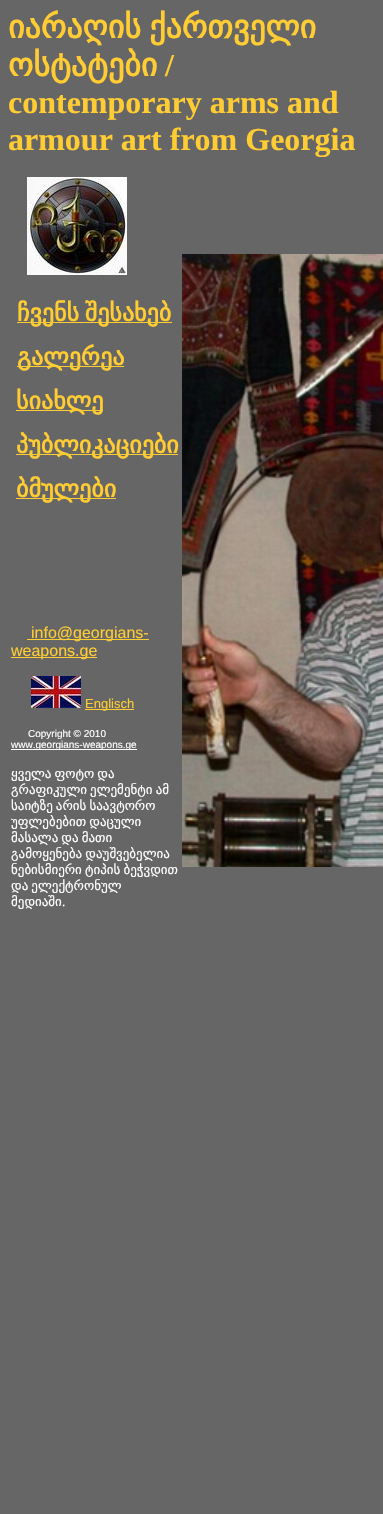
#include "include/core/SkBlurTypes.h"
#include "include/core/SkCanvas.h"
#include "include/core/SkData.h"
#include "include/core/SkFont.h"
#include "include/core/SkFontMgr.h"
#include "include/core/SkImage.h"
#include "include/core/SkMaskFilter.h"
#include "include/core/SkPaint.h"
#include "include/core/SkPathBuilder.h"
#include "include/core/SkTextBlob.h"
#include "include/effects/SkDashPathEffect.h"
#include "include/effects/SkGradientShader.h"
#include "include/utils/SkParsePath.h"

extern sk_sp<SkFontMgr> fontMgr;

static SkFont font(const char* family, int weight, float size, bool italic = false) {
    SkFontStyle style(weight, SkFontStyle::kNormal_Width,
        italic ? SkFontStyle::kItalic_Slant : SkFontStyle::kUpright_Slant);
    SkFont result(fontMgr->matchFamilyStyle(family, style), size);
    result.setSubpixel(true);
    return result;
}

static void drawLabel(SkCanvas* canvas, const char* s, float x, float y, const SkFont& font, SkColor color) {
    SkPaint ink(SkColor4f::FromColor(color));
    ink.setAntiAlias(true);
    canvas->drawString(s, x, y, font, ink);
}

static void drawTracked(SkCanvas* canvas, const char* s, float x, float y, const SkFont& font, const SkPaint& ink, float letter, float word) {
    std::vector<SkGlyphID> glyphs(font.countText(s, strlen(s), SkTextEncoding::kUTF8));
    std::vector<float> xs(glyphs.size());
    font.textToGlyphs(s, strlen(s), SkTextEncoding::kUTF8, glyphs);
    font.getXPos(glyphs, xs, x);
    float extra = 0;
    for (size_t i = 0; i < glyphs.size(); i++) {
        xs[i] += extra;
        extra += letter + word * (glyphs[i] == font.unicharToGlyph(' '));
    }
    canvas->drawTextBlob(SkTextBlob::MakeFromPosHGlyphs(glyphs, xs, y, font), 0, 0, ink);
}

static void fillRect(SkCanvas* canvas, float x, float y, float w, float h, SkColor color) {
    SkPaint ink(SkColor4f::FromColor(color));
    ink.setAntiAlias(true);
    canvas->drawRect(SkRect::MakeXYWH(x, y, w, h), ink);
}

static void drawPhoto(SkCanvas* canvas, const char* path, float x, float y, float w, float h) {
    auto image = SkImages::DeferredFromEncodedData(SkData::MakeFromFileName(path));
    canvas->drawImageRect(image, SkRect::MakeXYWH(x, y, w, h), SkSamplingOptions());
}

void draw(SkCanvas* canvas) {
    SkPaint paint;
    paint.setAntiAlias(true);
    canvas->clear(0xFF666666);
    SkFont font1 = font("DejaVu Sans", 700, 32);
    paint.setColor(0xFFFFCC33);
    drawTracked(canvas, "იარაღის ქართველი", 8, 38, font1, paint, 0, -2);
    drawLabel(canvas, "ოსტატები", 8, 76, font1, 0xFFFFCC33);
    SkFont font2 = font("Liberation Serif", 700, 32);
    drawLabel(canvas, "/", 165, 76, font2, 0xFFFFCC33);
    drawLabel(canvas, "contemporary arms and", 8, 113, font2, 0xFFFFCC33);
    drawLabel(canvas, "armour art from Georgia", 8, 150, font2, 0xFFFFCC33);
    drawPhoto(canvas, "assets/img1.png", 27, 177, 100, 98);
    fillRect(canvas, 17, 322, 155, 1, 0xFFFFCC33);
    SkFont font3 = font("DejaVu Sans", 700, 24);
    drawTracked(canvas, "ჩვენს შესახებ", 17, 321, font3, paint, 0, -2);
    fillRect(canvas, 17, 366, 107, 1, 0xFFFFCC33);
    drawLabel(canvas, "გალერეა", 17, 365, font3, 0xFFFFCC33);
    fillRect(canvas, 16, 410, 87, 1, 0xFFFFCC33);
    drawLabel(canvas, "სიახლე", 16, 409, font3, 0xFFFFCC33);
    fillRect(canvas, 16, 454, 162, 1, 0xFFFFCC33);
    drawLabel(canvas, "პუბლიკაციები", 16, 453, font3, 0xFFFFCC33);
    fillRect(canvas, 16, 498, 100, 1, 0xFFFFCC33);
    drawLabel(canvas, "ბმულები", 16, 497, font3, 0xFFFFCC33);
    fillRect(canvas, 27, 639, 122, 1, 0xFFFFCC33);
    SkFont font4 = font("Liberation Sans", 400, 16);
    drawLabel(canvas, "info@georgians-", 31, 638, font4, 0xFFFFCC33);
    fillRect(canvas, 11, 657, 86, 1, 0xFFFFCC33);
    drawLabel(canvas, "weapons.ge", 11, 656, font4, 0xFFFFCC33);
    drawPhoto(canvas, "assets/img2.png", 31, 676, 50, 32);
    fillRect(canvas, 85, 709, 49, 1, 0xFFFFCC33);
    SkFont font5 = font("Liberation Sans", 400, 13);
    drawLabel(canvas, "Englisch", 85, 708, font5, 0xFFFFCC33);
    SkFont font6 = font("Liberation Sans", 400, 10);
    drawLabel(canvas, "Copyright © 2010", 28, 737, font6, 0xFFFFFFFF);
    fillRect(canvas, 11, 749, 126, 1, 0xFFFFFFFF);
    drawLabel(canvas, "www.georgians-weapons.ge", 11, 748, font6, 0xFFFFFFFF);
    SkFont font7 = font("DejaVu Sans", 400, 13);
    paint.setColor(0xFFFFFFFF);
    drawTracked(canvas, "ყველა ფოტო და", 11, 778, font7, paint, 0, -1);
    drawTracked(canvas, "გრაფიკული ელემენტი ამ", 11, 794, font7, paint, 0, -1);
    drawTracked(canvas, "საიტზე არის საავტორო", 11, 810, font7, paint, 0, -1);
    drawTracked(canvas, "უფლებებით დაცული", 11, 826, font7, paint, 0, -1);
    drawTracked(canvas, "მასალა და მათი", 11, 842, font7, paint, 0, -1);
    drawTracked(canvas, "გამოყენება დაუშვებელია", 11, 858, font7, paint, 0, -1);
    drawTracked(canvas, "ნებისმიერი ტიპის ბეჭვდით", 11, 874, font7, paint, 0, -1);
    drawTracked(canvas, "და ელექტრონულ", 11, 890, font7, paint, 0, -1);
    drawLabel(canvas, "მედიაში", 11, 906, font7, 0xFFFFFFFF);
    SkFont font8 = font("Liberation Serif", 400, 13);
    drawLabel(canvas, ".", 62, 906, font8, 0xFFFFFFFF);
    drawPhoto(canvas, "assets/img3.png", 182, 254, 201, 613);
}
